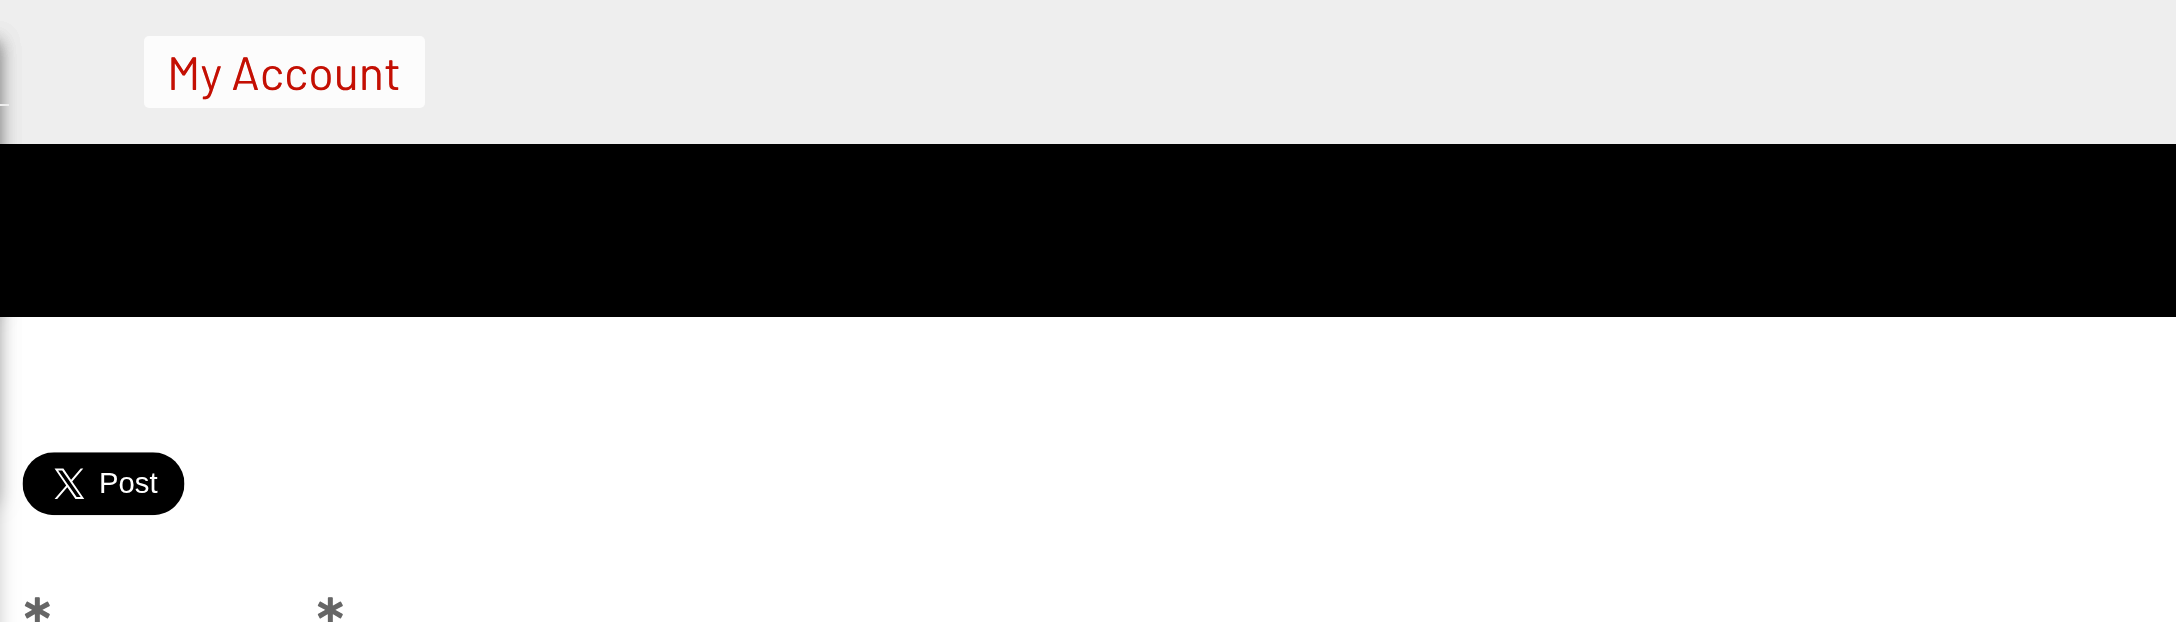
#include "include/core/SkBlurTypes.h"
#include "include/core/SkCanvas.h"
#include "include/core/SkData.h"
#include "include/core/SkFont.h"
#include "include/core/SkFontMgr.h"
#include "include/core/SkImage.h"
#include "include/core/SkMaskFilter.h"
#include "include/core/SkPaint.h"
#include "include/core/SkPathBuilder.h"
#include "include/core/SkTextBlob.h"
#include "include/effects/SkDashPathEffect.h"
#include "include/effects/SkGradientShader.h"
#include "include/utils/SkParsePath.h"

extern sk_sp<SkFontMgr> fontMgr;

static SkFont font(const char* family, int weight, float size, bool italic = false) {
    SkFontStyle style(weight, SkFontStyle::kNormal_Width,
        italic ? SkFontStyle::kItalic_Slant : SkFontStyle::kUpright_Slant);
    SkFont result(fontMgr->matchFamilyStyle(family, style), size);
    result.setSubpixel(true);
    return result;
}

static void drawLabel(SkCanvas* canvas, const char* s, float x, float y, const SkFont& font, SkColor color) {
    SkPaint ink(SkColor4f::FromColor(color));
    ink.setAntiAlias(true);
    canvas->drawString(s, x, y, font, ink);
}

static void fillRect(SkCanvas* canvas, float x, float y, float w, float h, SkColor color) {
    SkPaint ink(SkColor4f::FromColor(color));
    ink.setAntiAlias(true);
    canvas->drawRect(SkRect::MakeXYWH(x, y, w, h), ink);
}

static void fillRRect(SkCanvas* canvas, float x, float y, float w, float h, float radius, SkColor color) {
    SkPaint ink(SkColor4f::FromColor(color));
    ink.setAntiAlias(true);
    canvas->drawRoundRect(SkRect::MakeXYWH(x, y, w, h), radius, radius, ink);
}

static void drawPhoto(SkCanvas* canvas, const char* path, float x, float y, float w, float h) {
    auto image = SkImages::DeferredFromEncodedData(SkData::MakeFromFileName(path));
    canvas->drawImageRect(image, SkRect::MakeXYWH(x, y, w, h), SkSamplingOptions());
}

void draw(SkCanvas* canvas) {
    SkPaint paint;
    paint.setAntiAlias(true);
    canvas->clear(0xFF000000);
    fillRect(canvas, 0, 0, 2176, 144, 0xFFEEEEEE);
    fillRRect(canvas, 144, 36, 281, 72, 5, 0xFFFCFCFC);
    SkFont font1 = font("Barlow", 400, 46.75f);
    drawLabel(canvas, "My Account", 167, 90, font1, 0xFFC40F03);
    fillRect(canvas, 0, 317, 2176, 305, 0xFFFFFFFF);
    drawPhoto(canvas, "assets/img1.png", 22, 452, 163, 64);
    paint.setColor(0x33000000);
    paint.setMaskFilter(SkMaskFilter::MakeBlur(kNormal_SkBlurStyle, 9));
    canvas->drawRoundRect(SkRect::MakeXYWH(-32, 41, 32, 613), 5, 5, paint);
    paint.setMaskFilter(nullptr);
    paint.setMaskFilter(SkMaskFilter::MakeBlur(kNormal_SkBlurStyle, 9));
    canvas->drawRoundRect(SkRect::MakeXYWH(-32, 41, 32, 272), 5, 5, paint);
    paint.setMaskFilter(nullptr);
    paint.setMaskFilter(SkMaskFilter::MakeBlur(kNormal_SkBlurStyle, 9));
    canvas->drawRoundRect(SkRect::MakeXYWH(-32, 41, 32, 463), 5, 5, paint);
    paint.setMaskFilter(nullptr);
    fillRect(canvas, 0, 104, 9, 2, 0xFFEEEEEE);
    SkFont font2 = font("Barlow", 600, 72);
    drawLabel(canvas, "*", 23, 651, font2, 0xFF666666);
    drawLabel(canvas, "*", 316, 651, font2, 0xFF666666);
}
